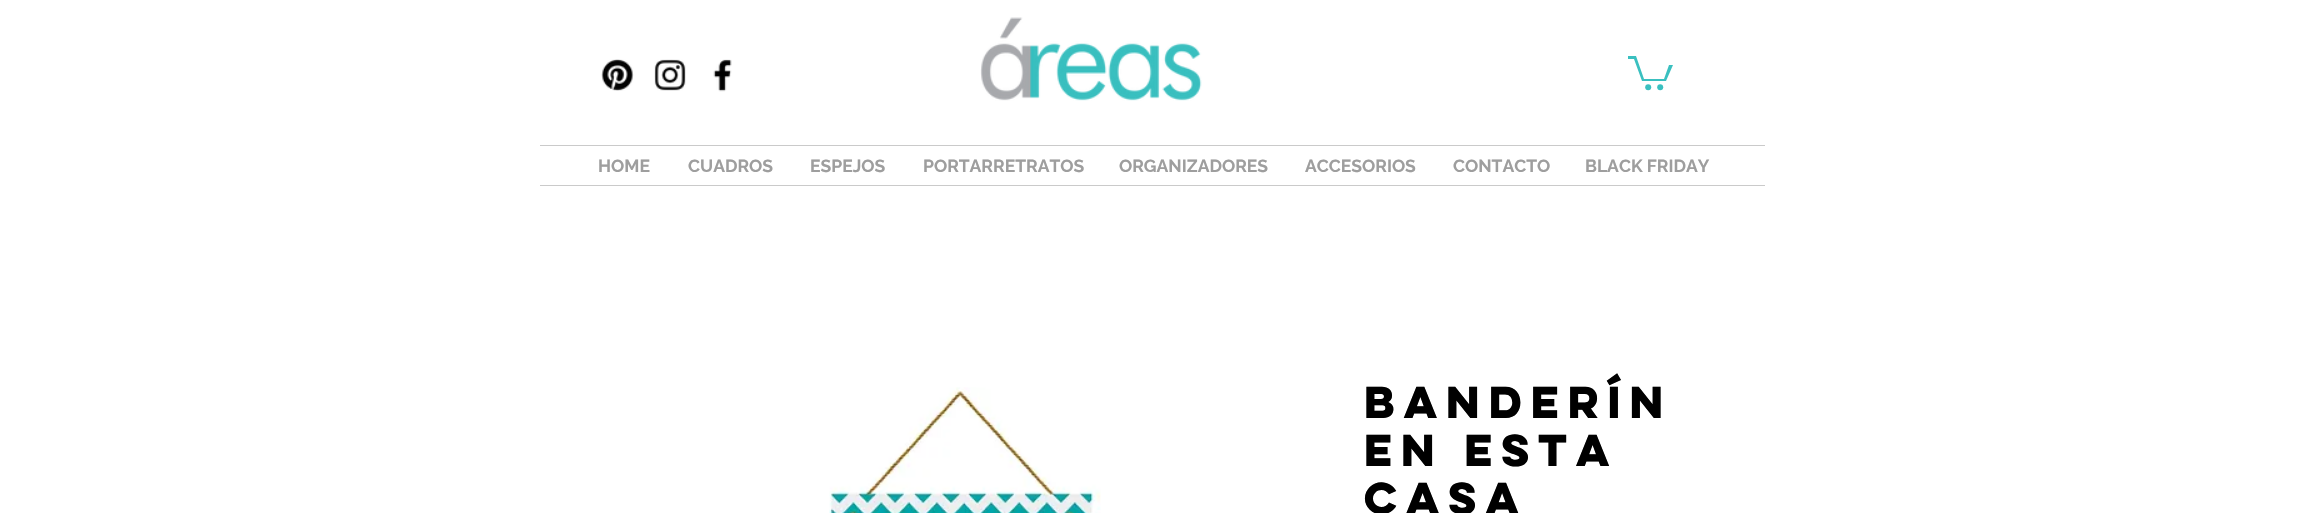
#include "include/core/SkBlurTypes.h"
#include "include/core/SkCanvas.h"
#include "include/core/SkData.h"
#include "include/core/SkFont.h"
#include "include/core/SkFontMgr.h"
#include "include/core/SkImage.h"
#include "include/core/SkMaskFilter.h"
#include "include/core/SkPaint.h"
#include "include/core/SkPathBuilder.h"
#include "include/core/SkTextBlob.h"
#include "include/effects/SkDashPathEffect.h"
#include "include/effects/SkGradientShader.h"
#include "include/utils/SkParsePath.h"

extern sk_sp<SkFontMgr> fontMgr;

static SkFont font(const char* family, int weight, float size, bool italic = false) {
    SkFontStyle style(weight, SkFontStyle::kNormal_Width,
        italic ? SkFontStyle::kItalic_Slant : SkFontStyle::kUpright_Slant);
    SkFont result(fontMgr->matchFamilyStyle(family, style), size);
    result.setSubpixel(true);
    return result;
}

static void drawLabel(SkCanvas* canvas, const char* s, float x, float y, const SkFont& font, SkColor color) {
    SkPaint ink(SkColor4f::FromColor(color));
    ink.setAntiAlias(true);
    canvas->drawString(s, x, y, font, ink);
}

static void fillRect(SkCanvas* canvas, float x, float y, float w, float h, SkColor color) {
    SkPaint ink(SkColor4f::FromColor(color));
    ink.setAntiAlias(true);
    canvas->drawRect(SkRect::MakeXYWH(x, y, w, h), ink);
}

static void drawPhoto(SkCanvas* canvas, const char* path, float x, float y, float w, float h) {
    auto image = SkImages::DeferredFromEncodedData(SkData::MakeFromFileName(path));
    canvas->drawImageRect(image, SkRect::MakeXYWH(x, y, w, h), SkSamplingOptions());
}

static SkPath parsePath(const char* data, bool evenOdd = false) {
    SkPath result = *SkParsePath::FromSVGString(data);
    if (evenOdd) result.setFillType(SkPathFillType::kEvenOdd);
    return result;
}

void draw(SkCanvas* canvas) {
    SkPaint paint;
    paint.setAntiAlias(true);
    canvas->clear(0xFFFFFFFF);
    drawPhoto(canvas, "assets/img1.png", 601, 59, 33, 32);
    drawPhoto(canvas, "assets/img2.png", 654, 59, 32, 32);
    drawPhoto(canvas, "assets/img3.png", 713, 59, 19, 33);
    drawPhoto(canvas, "assets/img4.png", 980, 17, 222, 84);
    paint.setColor(0xFF3AC0C0);
    canvas->drawPath(parsePath("M1673 65L1666 81H1642L1634 59H1628V56H1636L1644 79H1664L1669 65"), paint);
    canvas->drawCircle(1660.2f, 87.3f, 3, paint);
    canvas->drawCircle(1648.2f, 87.3f, 3, paint);
    fillRect(canvas, 540, 145, 1225, 1, 0xFFCACACA);
    fillRect(canvas, 540, 185, 1225, 1, 0xFFCACACA);
    SkFont font1 = font("Raleway", 700, 17.5f);
    drawLabel(canvas, "HOME", 598, 172, font1, 0xFF9E9E9E);
    drawLabel(canvas, "CUADROS", 688, 172, font1, 0xFF9E9E9E);
    drawLabel(canvas, "ESPEJOS", 810, 172, font1, 0xFF9E9E9E);
    drawLabel(canvas, "PORTARRETRATOS", 923, 172, font1, 0xFF9E9E9E);
    drawLabel(canvas, "ORGANIZADORES", 1119, 172, font1, 0xFF9E9E9E);
    drawLabel(canvas, "ACCESORIOS", 1305, 172, font1, 0xFF9E9E9E);
    drawLabel(canvas, "CONTACTO", 1453, 172, font1, 0xFF9E9E9E);
    drawLabel(canvas, "BLACK FRIDAY", 1585, 172, font1, 0xFF9E9E9E);
    drawPhoto(canvas, "assets/img5.png", 829, 387, 272, 126);
    SkFont font2 = font("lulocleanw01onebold", 700, 40);
    drawLabel(canvas, "Banderín", 1364, 418, font2, 0xFF000000);
    drawLabel(canvas, "En Esta", 1364, 466, font2, 0xFF000000);
    drawLabel(canvas, "Casa", 1364, 514, font2, 0xFF000000);
}
